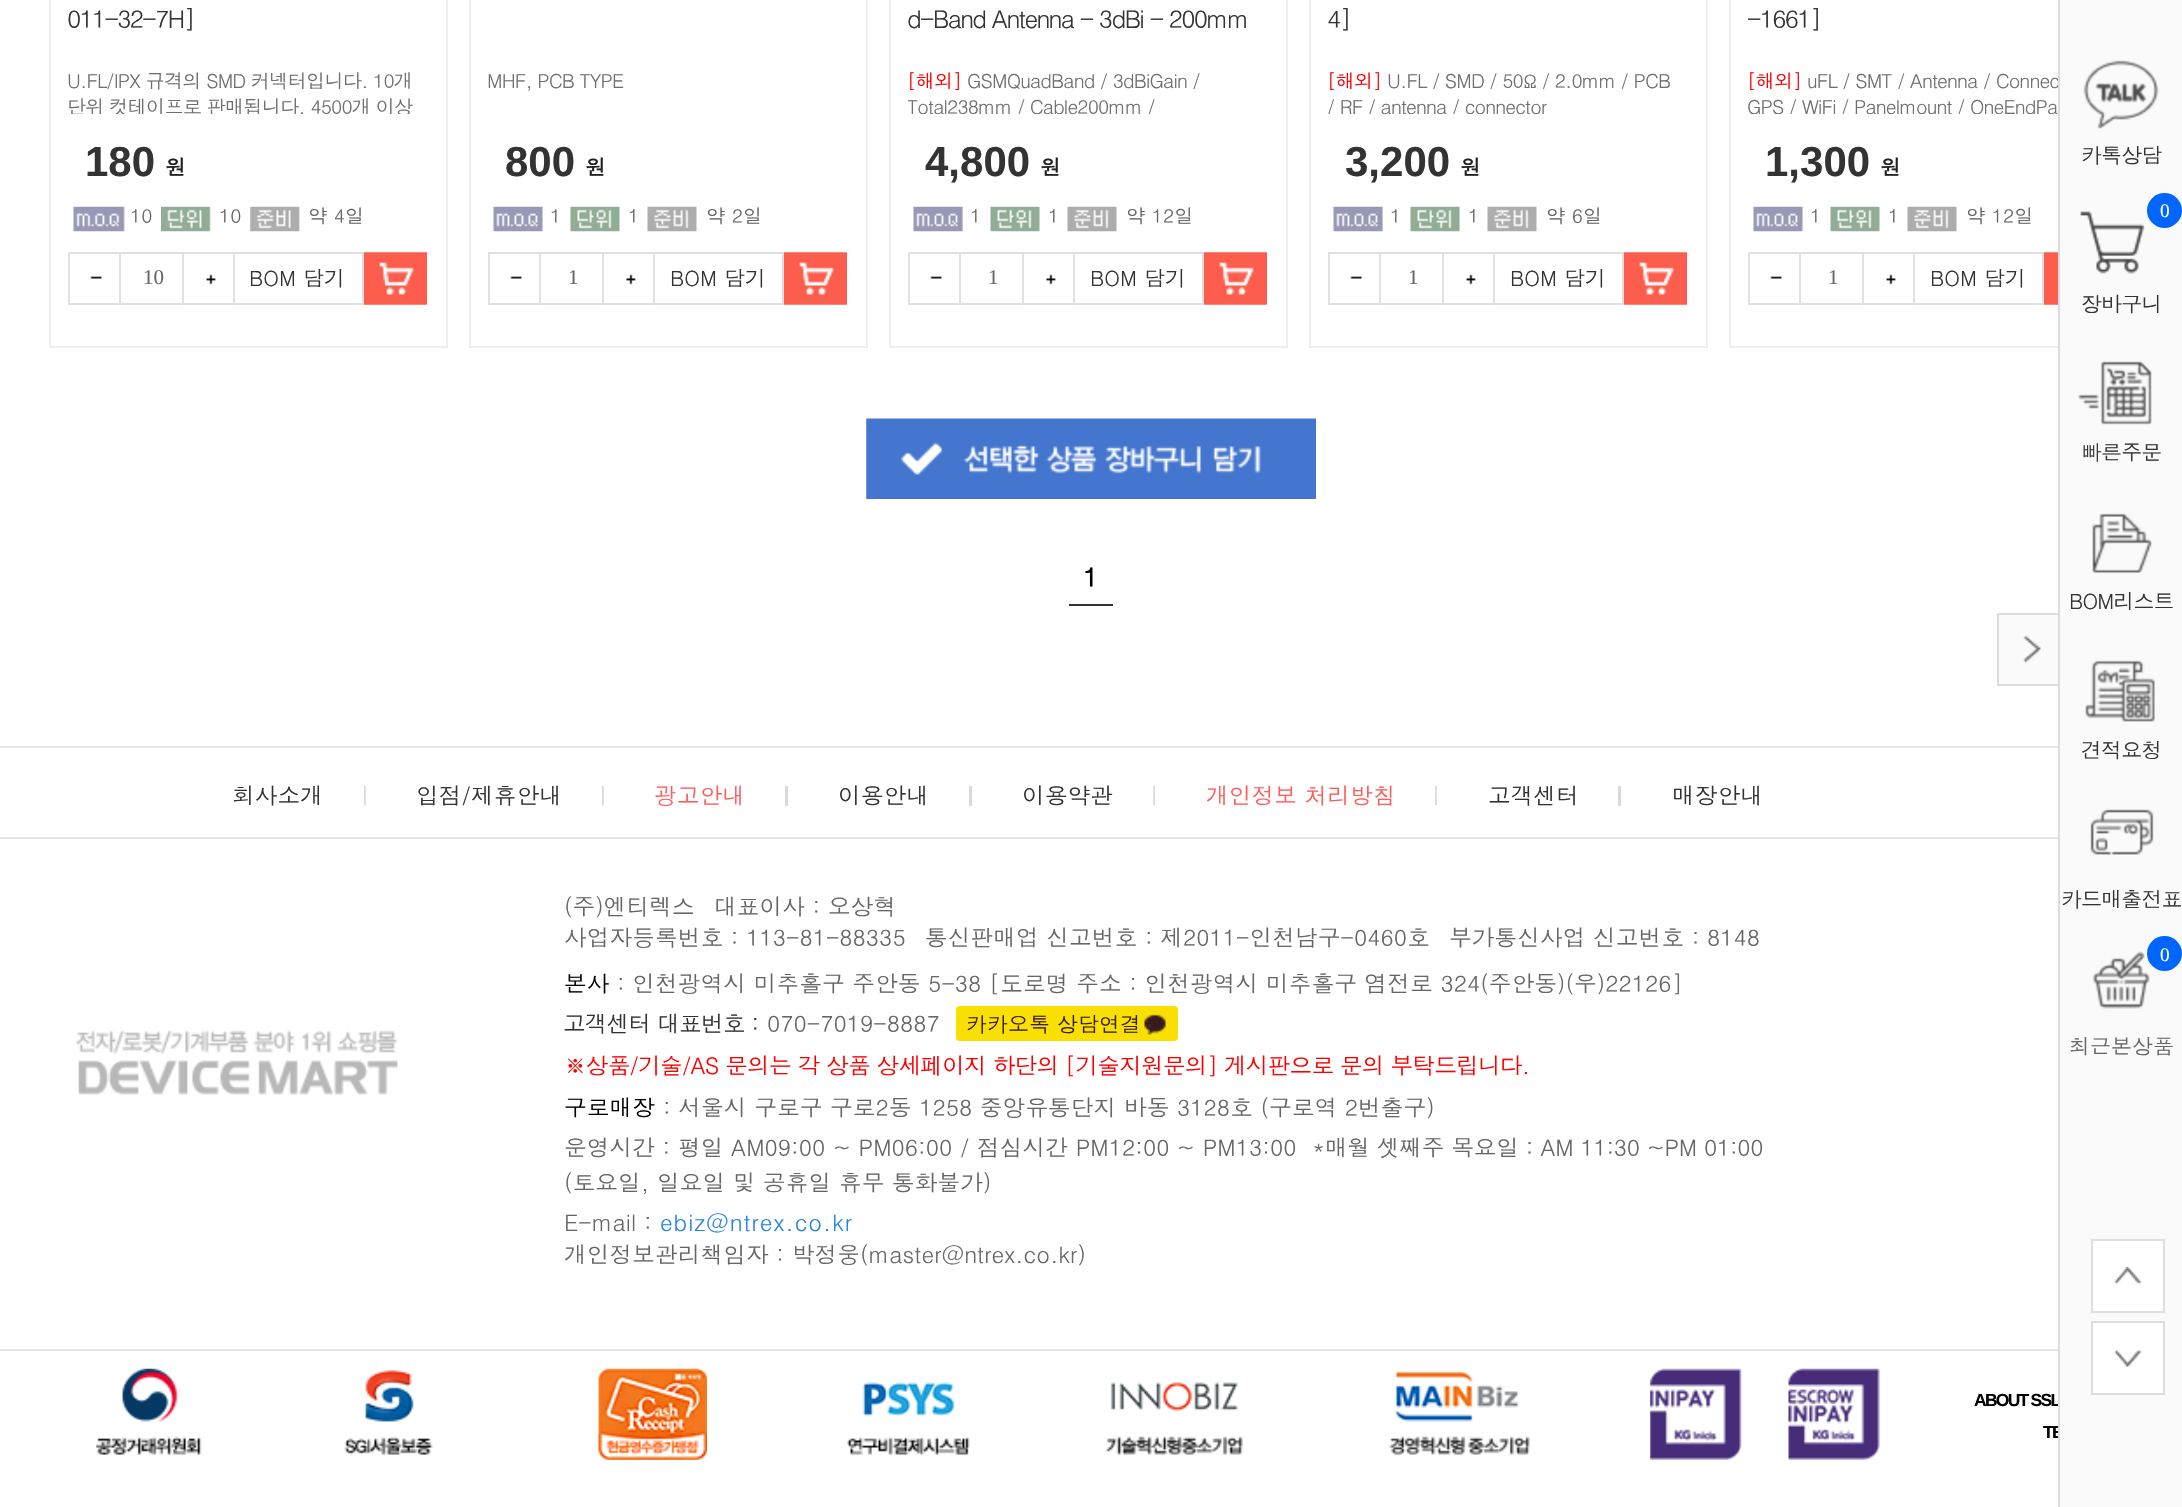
#include "include/core/SkBlurTypes.h"
#include "include/core/SkCanvas.h"
#include "include/core/SkData.h"
#include "include/core/SkFont.h"
#include "include/core/SkFontMgr.h"
#include "include/core/SkImage.h"
#include "include/core/SkMaskFilter.h"
#include "include/core/SkPaint.h"
#include "include/core/SkPathBuilder.h"
#include "include/core/SkTextBlob.h"
#include "include/effects/SkDashPathEffect.h"
#include "include/effects/SkGradientShader.h"
#include "include/utils/SkParsePath.h"

extern sk_sp<SkFontMgr> fontMgr;

static SkFont font(const char* family, int weight, float size, bool italic = false) {
    SkFontStyle style(weight, SkFontStyle::kNormal_Width,
        italic ? SkFontStyle::kItalic_Slant : SkFontStyle::kUpright_Slant);
    SkFont result(fontMgr->matchFamilyStyle(family, style), size);
    result.setSubpixel(true);
    return result;
}

static void drawLabel(SkCanvas* canvas, const char* s, float x, float y, const SkFont& font, SkColor color) {
    SkPaint ink(SkColor4f::FromColor(color));
    ink.setAntiAlias(true);
    canvas->drawString(s, x, y, font, ink);
}

static void drawTracked(SkCanvas* canvas, const char* s, float x, float y, const SkFont& font, const SkPaint& ink, float letter, float word) {
    std::vector<SkGlyphID> glyphs(font.countText(s, strlen(s), SkTextEncoding::kUTF8));
    std::vector<float> xs(glyphs.size());
    font.textToGlyphs(s, strlen(s), SkTextEncoding::kUTF8, glyphs);
    font.getXPos(glyphs, xs, x);
    float extra = 0;
    for (size_t i = 0; i < glyphs.size(); i++) {
        xs[i] += extra;
        extra += letter + word * (glyphs[i] == font.unicharToGlyph(' '));
    }
    canvas->drawTextBlob(SkTextBlob::MakeFromPosHGlyphs(glyphs, xs, y, font), 0, 0, ink);
}

static void fillRect(SkCanvas* canvas, float x, float y, float w, float h, SkColor color) {
    SkPaint ink(SkColor4f::FromColor(color));
    ink.setAntiAlias(true);
    canvas->drawRect(SkRect::MakeXYWH(x, y, w, h), ink);
}

static void drawPhoto(SkCanvas* canvas, const char* path, float x, float y, float w, float h) {
    auto image = SkImages::DeferredFromEncodedData(SkData::MakeFromFileName(path));
    canvas->drawImageRect(image, SkRect::MakeXYWH(x, y, w, h), SkSamplingOptions());
}

void draw(SkCanvas* canvas) {
    SkPaint paint;
    paint.setAntiAlias(true);
    canvas->clear(0xFFFFFFFF);
    paint.setStroke(true);
    paint.setStrokeWidth(2);
    paint.setColor(0xFFEEEEEE);
    canvas->drawRect(SkRect::MakeXYWH(50, -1, 397, 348), paint);
    SkFont font1 = font("Dotum", 400, 24.5f);
    paint.setStroke(false);
    paint.setColor(0xFF333333);
    drawTracked(canvas, "011-32-7H]", 67, 28, font1, paint, -1.75f, 0);
    SkFont font2 = font("Dotum", 400, 19.25f);
    paint.setColor(0xFF6C6E70);
    drawTracked(canvas, "U.FL/IPX 규격의 SMD 커넥터입니다. 10개", 67, 88, font2, paint, -0.88f, 0);
    canvas->save();
    canvas->clipRect(SkRect::MakeXYWH(68, 67, 350, 47));
    drawTracked(canvas, "단위 컷테이프로 판매됩니다. 4500개 이상", 67, 114, font2, paint, -0.88f, 0);
    canvas->restore();
    SkFont font3 = font("Liberation Sans", 700, 42);
    drawLabel(canvas, "180", 85, 176, font3, 0xFF333333);
    SkFont font4 = font("Dotum", 700, 21);
    drawLabel(canvas, "원", 165, 175, font4, 0xFF222222);
    drawPhoto(canvas, "assets/img1.png", 73, 206, 52, 26);
    drawLabel(canvas, "10", 130, 223, font2, 0xFF666666);
    drawPhoto(canvas, "assets/img2.png", 161, 206, 50, 26);
    drawLabel(canvas, "10", 219, 223, font2, 0xFF666666);
    drawPhoto(canvas, "assets/img3.png", 250, 206, 50, 26);
    drawLabel(canvas, "약 4일", 308, 223, font2, 0xFF666666);
    drawPhoto(canvas, "assets/img4.png", 90, 276, 12, 3);
    paint.setStroke(true);
    paint.setColor(0xFFE1E1E1);
    canvas->drawRect(SkRect::MakeXYWH(69, 253, 51, 51), paint);
    fillRect(canvas, 121, 252, 61, 2, 0xFFE0E0E0);
    fillRect(canvas, 121, 303, 61, 2, 0xFFE0E0E0);
    SkFont font5 = font("Liberation Serif", 400, 21);
    drawLabel(canvas, "10", 143, 284, font5, 0xFF666666);
    drawPhoto(canvas, "assets/img5.png", 206, 274, 10, 11);
    canvas->drawRect(SkRect::MakeXYWH(183, 253, 51, 51), paint);
    fillRect(canvas, 235, 252, 129, 2, 0xFFE0E0E0);
    fillRect(canvas, 362, 252, 2, 53, 0xFFE0E0E0);
    fillRect(canvas, 235, 303, 129, 2, 0xFFE0E0E0);
    SkFont font6 = font("Dotum", 400, 21);
    drawLabel(canvas, "BOM 담기", 249, 286, font6, 0xFF333333);
    drawPhoto(canvas, "assets/img6.png", 364, 252, 63, 53);
    paint.setColor(0xFFEEEEEE);
    canvas->drawRect(SkRect::MakeXYWH(470, -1, 397, 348), paint);
    paint.setStroke(false);
    paint.setColor(0xFF6C6E70);
    drawTracked(canvas, "MHF, PCB TYPE", 487, 88, font2, paint, -0.88f, 0);
    drawLabel(canvas, "800", 505, 176, font3, 0xFF333333);
    drawLabel(canvas, "원", 585, 175, font4, 0xFF222222);
    drawPhoto(canvas, "assets/img7.png", 493, 206, 50, 26);
    drawLabel(canvas, "1", 550, 223, font2, 0xFF666666);
    drawPhoto(canvas, "assets/img8.png", 570, 206, 50, 26);
    drawLabel(canvas, "1", 628, 223, font2, 0xFF666666);
    drawPhoto(canvas, "assets/img9.png", 647, 206, 50, 26);
    drawLabel(canvas, "약 2일", 706, 223, font2, 0xFF666666);
    drawPhoto(canvas, "assets/img4.png", 510, 276, 12, 3);
    paint.setStroke(true);
    paint.setColor(0xFFE1E1E1);
    canvas->drawRect(SkRect::MakeXYWH(489, 253, 51, 51), paint);
    fillRect(canvas, 541, 252, 61, 2, 0xFFE0E0E0);
    fillRect(canvas, 541, 303, 61, 2, 0xFFE0E0E0);
    drawLabel(canvas, "1", 568, 284, font5, 0xFF666666);
    drawPhoto(canvas, "assets/img10.png", 626, 274, 10, 11);
    canvas->drawRect(SkRect::MakeXYWH(603, 253, 51, 51), paint);
    fillRect(canvas, 655, 252, 129, 2, 0xFFE0E0E0);
    fillRect(canvas, 782, 252, 2, 53, 0xFFE0E0E0);
    fillRect(canvas, 655, 303, 129, 2, 0xFFE0E0E0);
    drawLabel(canvas, "BOM 담기", 670, 286, font6, 0xFF333333);
    drawPhoto(canvas, "assets/img11.png", 784, 252, 63, 53);
    paint.setColor(0xFFEEEEEE);
    canvas->drawRect(SkRect::MakeXYWH(890, -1, 397, 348), paint);
    paint.setStroke(false);
    paint.setColor(0xFF333333);
    drawTracked(canvas, "d-Band Antenna - 3dBi - 200mm", 907, 28, font1, paint, -1.75f, 0);
    paint.setColor(0xFFFF0000);
    drawTracked(canvas, "[해외]", 907, 88, font2, paint, -0.88f, 0);
    paint.setColor(0xFF6C6E70);
    drawTracked(canvas, "GSMQuadBand / 3dBiGain /", 967, 88, font2, paint, -0.88f, 0);
    canvas->save();
    canvas->clipRect(SkRect::MakeXYWH(908, 67, 350, 47));
    drawTracked(canvas, "Total238mm / Cable200mm /", 907, 114, font2, paint, -0.88f, 0);
    canvas->restore();
    drawLabel(canvas, "4,800", 925, 176, font3, 0xFF333333);
    drawLabel(canvas, "원", 1040, 175, font4, 0xFF222222);
    drawPhoto(canvas, "assets/img12.png", 913, 206, 50, 26);
    drawLabel(canvas, "1", 970, 223, font2, 0xFF666666);
    drawPhoto(canvas, "assets/img13.png", 990, 206, 50, 26);
    drawLabel(canvas, "1", 1048, 223, font2, 0xFF666666);
    drawPhoto(canvas, "assets/img14.png", 1067, 206, 50, 26);
    drawLabel(canvas, "약 12일", 1126, 223, font2, 0xFF666666);
    drawPhoto(canvas, "assets/img4.png", 930, 276, 12, 3);
    paint.setStroke(true);
    paint.setColor(0xFFE1E1E1);
    canvas->drawRect(SkRect::MakeXYWH(909, 253, 51, 51), paint);
    fillRect(canvas, 961, 252, 61, 2, 0xFFE0E0E0);
    fillRect(canvas, 961, 303, 61, 2, 0xFFE0E0E0);
    drawLabel(canvas, "1", 988, 284, font5, 0xFF666666);
    drawPhoto(canvas, "assets/img10.png", 1046, 274, 10, 11);
    canvas->drawRect(SkRect::MakeXYWH(1023, 253, 51, 51), paint);
    fillRect(canvas, 1075, 252, 129, 2, 0xFFE0E0E0);
    fillRect(canvas, 1202, 252, 2, 53, 0xFFE0E0E0);
    fillRect(canvas, 1075, 303, 129, 2, 0xFFE0E0E0);
    drawLabel(canvas, "BOM 담기", 1090, 286, font6, 0xFF333333);
    drawPhoto(canvas, "assets/img6.png", 1204, 252, 63, 53);
    paint.setColor(0xFFEEEEEE);
    canvas->drawRect(SkRect::MakeXYWH(1310, -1, 397, 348), paint);
    paint.setStroke(false);
    paint.setColor(0xFF333333);
    drawTracked(canvas, "4]", 1327, 28, font1, paint, -1.75f, 0);
    paint.setColor(0xFFFF0000);
    drawTracked(canvas, "[해외]", 1327, 88, font2, paint, -0.88f, 0);
    paint.setColor(0xFF6C6E70);
    drawTracked(canvas, "U.FL / SMD / 50Ω / 2.0mm / PCB", 1387, 88, font2, paint, -0.88f, 0);
    canvas->save();
    canvas->clipRect(SkRect::MakeXYWH(1328, 67, 350, 47));
    drawTracked(canvas, "/ RF / antenna / connector", 1327, 114, font2, paint, -0.88f, 0);
    canvas->restore();
    drawLabel(canvas, "3,200", 1345, 176, font3, 0xFF333333);
    drawLabel(canvas, "원", 1460, 175, font4, 0xFF222222);
    drawPhoto(canvas, "assets/img12.png", 1333, 206, 50, 26);
    drawLabel(canvas, "1", 1390, 223, font2, 0xFF666666);
    drawPhoto(canvas, "assets/img15.png", 1410, 206, 50, 26);
    drawLabel(canvas, "1", 1468, 223, font2, 0xFF666666);
    drawPhoto(canvas, "assets/img16.png", 1487, 206, 50, 26);
    drawLabel(canvas, "약 6일", 1546, 223, font2, 0xFF666666);
    drawPhoto(canvas, "assets/img17.png", 1350, 276, 12, 3);
    paint.setStroke(true);
    paint.setColor(0xFFE1E1E1);
    canvas->drawRect(SkRect::MakeXYWH(1329, 253, 51, 51), paint);
    fillRect(canvas, 1381, 252, 61, 2, 0xFFE0E0E0);
    fillRect(canvas, 1381, 303, 61, 2, 0xFFE0E0E0);
    drawLabel(canvas, "1", 1408, 284, font5, 0xFF666666);
    drawPhoto(canvas, "assets/img5.png", 1466, 274, 10, 11);
    canvas->drawRect(SkRect::MakeXYWH(1443, 253, 51, 51), paint);
    fillRect(canvas, 1495, 252, 129, 2, 0xFFE0E0E0);
    fillRect(canvas, 1622, 252, 2, 53, 0xFFE0E0E0);
    fillRect(canvas, 1495, 303, 129, 2, 0xFFE0E0E0);
    drawLabel(canvas, "BOM 담기", 1510, 286, font6, 0xFF333333);
    drawPhoto(canvas, "assets/img6.png", 1624, 252, 63, 53);
    paint.setColor(0xFFEEEEEE);
    canvas->drawRect(SkRect::MakeXYWH(1730, -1, 397, 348), paint);
    paint.setStroke(false);
    paint.setColor(0xFF333333);
    drawTracked(canvas, "-1661]", 1747, 28, font1, paint, -1.75f, 0);
    paint.setColor(0xFFFF0000);
    drawTracked(canvas, "[해외]", 1747, 88, font2, paint, -0.88f, 0);
    paint.setColor(0xFF6C6E70);
    drawTracked(canvas, "uFL / SMT / Antenna / Connec", 1807, 88, font2, paint, -0.88f, 0);
    canvas->save();
    canvas->clipRect(SkRect::MakeXYWH(1748, 67, 350, 47));
    drawTracked(canvas, "GPS / WiFi / Panelmount / OneEndPa", 1747, 114, font2, paint, -0.88f, 0);
    canvas->restore();
    drawLabel(canvas, "1,300", 1765, 176, font3, 0xFF333333);
    drawLabel(canvas, "원", 1880, 175, font4, 0xFF222222);
    drawPhoto(canvas, "assets/img18.png", 1753, 206, 50, 26);
    drawLabel(canvas, "1", 1810, 223, font2, 0xFF666666);
    drawPhoto(canvas, "assets/img19.png", 1830, 206, 50, 26);
    drawLabel(canvas, "1", 1888, 223, font2, 0xFF666666);
    drawPhoto(canvas, "assets/img9.png", 1907, 206, 50, 26);
    drawLabel(canvas, "약 12일", 1966, 223, font2, 0xFF666666);
    drawPhoto(canvas, "assets/img4.png", 1770, 276, 12, 3);
    paint.setStroke(true);
    paint.setColor(0xFFE1E1E1);
    canvas->drawRect(SkRect::MakeXYWH(1749, 253, 51, 51), paint);
    fillRect(canvas, 1801, 252, 61, 2, 0xFFE0E0E0);
    fillRect(canvas, 1801, 303, 61, 2, 0xFFE0E0E0);
    drawLabel(canvas, "1", 1828, 284, font5, 0xFF666666);
    drawPhoto(canvas, "assets/img5.png", 1886, 274, 10, 11);
    canvas->drawRect(SkRect::MakeXYWH(1863, 253, 51, 51), paint);
    fillRect(canvas, 1915, 252, 129, 2, 0xFFE0E0E0);
    fillRect(canvas, 2042, 252, 2, 53, 0xFFE0E0E0);
    fillRect(canvas, 1915, 303, 129, 2, 0xFFE0E0E0);
    drawLabel(canvas, "BOM 담기", 1930, 286, font6, 0xFF333333);
    drawPhoto(canvas, "assets/img20.png", 2044, 252, 14, 53);
    drawPhoto(canvas, "assets/img21.png", 866, 418, 450, 81);
    fillRect(canvas, 1069, 604, 44, 2, 0xFF333333);
    SkFont font7 = font("Dotum", 700, 26);
    drawLabel(canvas, "1", 1083, 587, font7, 0xFF000000);
    paint.setStroke(false);
    paint.setColor(0xFFFAFAFA);
    canvas->drawRect(SkRect::MakeXYWH(1998, 614, 61, 71), paint);
    paint.setStroke(true);
    paint.setColor(0xFFDCDCDC);
    canvas->drawRect(SkRect::MakeXYWH(1998, 614, 61, 71), paint);
    drawPhoto(canvas, "assets/img22.png", 2023, 635, 18, 29);
    SkFont font8 = font("Liberation Sans", 700, 17.5f);
    paint.setStroke(false);
    paint.setColor(0xFF000000);
    drawTracked(canvas, "ABOUT SSL", 1974, 1406, font8, paint, -1.75f, 0);
    drawTracked(canvas, "TE", 2043, 1438, font8, paint, -1.75f, 0);
    fillRect(canvas, 2060, 0, 122, 1507, 0xFFFAFAFA);
    fillRect(canvas, 2058, 0, 2, 1507, 0xFFDCDCDC);
    drawPhoto(canvas, "assets/img23.png", 2083, 60, 76, 69);
    paint.setColor(0xFF333333);
    drawTracked(canvas, "카톡상담", 2081, 163, font6, paint, -0.88f, 0);
    drawPhoto(canvas, "assets/img24.png", 2080, 211, 65, 63);
    paint.setColor(0xFF0066FF);
    canvas->drawCircle(2164.5f, 210.5f, 17.5f, paint);
    SkFont font9 = font("Liberation Serif", 400, 19.25f);
    paint.setColor(0xFFFFFFFF);
    drawTracked(canvas, "0", 2160, 217, font9, paint, -0.88f, 0);
    paint.setColor(0xFF333333);
    drawTracked(canvas, "장바구니", 2081, 312, font6, paint, -0.88f, 0);
    drawPhoto(canvas, "assets/img25.png", 2078, 361, 74, 64);
    drawTracked(canvas, "빠른주문", 2081, 460, font6, paint, -0.88f, 0);
    drawPhoto(canvas, "assets/img26.png", 2092, 513, 60, 60);
    drawTracked(canvas, "BOM리스트", 2069, 609, font6, paint, -0.88f, 0);
    drawPhoto(canvas, "assets/img27.png", 2085, 660, 70, 62);
    drawTracked(canvas, "견적요청", 2081, 758, font6, paint, -0.88f, 0);
    drawPhoto(canvas, "assets/img28.png", 2090, 809, 64, 46);
    drawTracked(canvas, "카드매출전표", 2061, 907, font6, paint, -0.88f, 0);
    drawPhoto(canvas, "assets/img29.png", 2092, 951, 58, 58);
    paint.setColor(0xFF0066FF);
    canvas->drawCircle(2164.5f, 953.5f, 17.5f, paint);
    drawLabel(canvas, "0", 2160, 961, font9, 0xFFFFFFFF);
    drawLabel(canvas, "최근본상품", 2069, 1054, font6, 0xFF666666);
    paint.setColor(0xFFFFFFFF);
    canvas->drawRect(SkRect::MakeXYWH(2092, 1240, 72, 72), paint);
    paint.setStroke(true);
    paint.setColor(0xFFDEDEDE);
    canvas->drawRect(SkRect::MakeXYWH(2092, 1240, 72, 72), paint);
    drawPhoto(canvas, "assets/img30.png", 2114, 1267, 28, 18);
    paint.setStroke(false);
    paint.setColor(0xFFFFFFFF);
    canvas->drawRect(SkRect::MakeXYWH(2092, 1322, 72, 72), paint);
    paint.setStroke(true);
    paint.setColor(0xFFDEDEDE);
    canvas->drawRect(SkRect::MakeXYWH(2092, 1322, 72, 72), paint);
    drawPhoto(canvas, "assets/img31.png", 2114, 1349, 28, 18);
    fillRect(canvas, 0, 746, 2058, 2, 0xFFE5E5E5);
    fillRect(canvas, 0, 837, 2058, 2, 0xFFE5E5E5);
    SkFont font10 = font("Dotum", 400, 22.75f);
    drawLabel(canvas, "회사소개", 232, 804, font10, 0xFF333333);
    drawPhoto(canvas, "assets/img32.png", 364, 786, 2, 20);
    drawLabel(canvas, "입점/제휴안내", 416, 804, font10, 0xFF333333);
    drawPhoto(canvas, "assets/img32.png", 602, 786, 2, 20);
    drawLabel(canvas, "광고안내", 654, 804, font10, 0xFFFF5B59);
    fillRect(canvas, 785, 786, 3, 20, 0xFFD9D9D9);
    drawLabel(canvas, "이용안내", 838, 804, font10, 0xFF333333);
    fillRect(canvas, 969, 786, 3, 20, 0xFFD9D9D9);
    drawLabel(canvas, "이용약관", 1022, 804, font10, 0xFF333333);
    drawPhoto(canvas, "assets/img33.png", 1153, 786, 2, 20);
    drawLabel(canvas, "개인정보 처리방침", 1206, 804, font10, 0xFFFF5B59);
    drawPhoto(canvas, "assets/img32.png", 1435, 786, 2, 20);
    drawLabel(canvas, "고객센터", 1488, 804, font10, 0xFF333333);
    fillRect(canvas, 1618, 786, 3, 20, 0xFFD9D9D9);
    drawLabel(canvas, "매장안내", 1672, 804, font10, 0xFF333333);
    drawPhoto(canvas, "assets/img34.png", 75, 1030, 323, 65);
    drawLabel(canvas, "(주)엔티렉스", 564, 915, font10, 0xFF666666);
    drawLabel(canvas, "대표이사 : 오상혁", 714, 915, font10, 0xFF666666);
    drawLabel(canvas, "사업자등록번호 : 113-81-88335", 564, 946, font10, 0xFF666666);
    drawLabel(canvas, "통신판매업 신고번호 : 제2011-인천남구-0460호", 925, 946, font10, 0xFF666666);
    drawLabel(canvas, "부가통신사업 신고번호 : 8148", 1449, 946, font10, 0xFF666666);
    drawLabel(canvas, "본사", 564, 992, font10, 0xFF000000);
    drawLabel(canvas, ": 인천광역시 미추홀구 주안동 5-38 [도로명 주소 : 인천광역시 미추홀구 염전로 324(주안동)(우)22126]", 617, 992, font10, 0xFF666666);
    paint.setStroke(false);
    paint.setColor(0xFF333333);
    drawTracked(canvas, "고객센터 대표번호 :", 563, 1032, font10, paint, -0.88f, 0);
    drawLabel(canvas, "070-7019-8887", 767, 1032, font10, 0xFF666666);
    paint.setColor(0xFFF9E000);
    canvas->drawRoundRect(SkRect::MakeXYWH(957, 1007, 220, 33), 3, 3, paint);
    paint.setStroke(true);
    canvas->drawRoundRect(SkRect::MakeXYWH(957, 1007, 220, 33), 3, 3, paint);
    drawLabel(canvas, "카카오톡 상담연결", 966, 1032, font6, 0xFF371C1D);
    drawPhoto(canvas, "assets/img35.png", 1144, 1014, 22, 21);
    paint.setStroke(false);
    paint.setColor(0xFFFF0000);
    drawTracked(canvas, "※상품/기술/AS 문의는 각 상품 상세페이지 하단의 [기술지원문의] 게시판으로 문의 부탁드립니다.", 564, 1074, font10, paint, -0.88f, 0);
    drawLabel(canvas, "구로매장", 564, 1116, font10, 0xFF000000);
    drawLabel(canvas, ": 서울시 구로구 구로2동 1258 중앙유통단지 바동 3128호 (구로역 2번출구)", 663, 1116, font10, 0xFF666666);
    drawLabel(canvas, "운영시간 : 평일 AM09:00 ~ PM06:00 / 점심시간 PM12:00 ~ PM13:00", 564, 1156, font10, 0xFF666666);
    paint.setColor(0xFF666666);
    drawTracked(canvas, "*매월 셋째주 목요일 : AM 11:30 ~PM 01:00", 1312, 1156, font10, paint, -0.35f, 0);
    drawLabel(canvas, "(토요일, 일요일 및 공휴일 휴무 통화불가)", 564, 1191, font10, 0xFF666666);
    drawLabel(canvas, "E-mail :", 564, 1231, font10, 0xFF666666);
    paint.setColor(0xFF2183DC);
    drawTracked(canvas, "ebiz@ntrex.co.kr", 660, 1231, font10, paint, 0.9f, 0);
    drawLabel(canvas, "개인정보관리책임자 : 박정웅(master@ntrex.co.kr)", 564, 1263, font10, 0xFF666666);
    fillRect(canvas, 0, 1349, 2058, 2, 0xFFE5E5E5);
    drawPhoto(canvas, "assets/img36.png", 96, 1368, 106, 87);
    drawPhoto(canvas, "assets/img37.png", 344, 1370, 89, 85);
    drawPhoto(canvas, "assets/img38.png", 598, 1368, 109, 92);
    drawPhoto(canvas, "assets/img39.png", 847, 1382, 123, 73);
    drawPhoto(canvas, "assets/img40.png", 1105, 1382, 138, 73);
    drawPhoto(canvas, "assets/img41.png", 1389, 1371, 141, 84);
    drawPhoto(canvas, "assets/img42.png", 1650, 1368, 92, 92);
    drawPhoto(canvas, "assets/img43.png", 1788, 1368, 92, 92);
}
